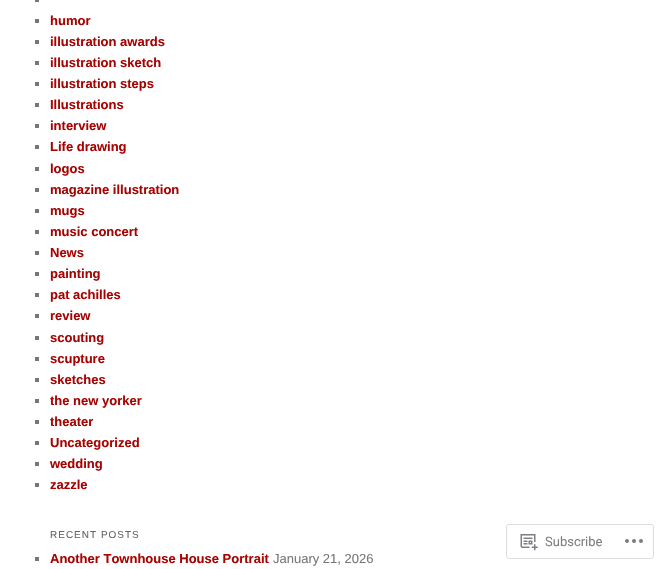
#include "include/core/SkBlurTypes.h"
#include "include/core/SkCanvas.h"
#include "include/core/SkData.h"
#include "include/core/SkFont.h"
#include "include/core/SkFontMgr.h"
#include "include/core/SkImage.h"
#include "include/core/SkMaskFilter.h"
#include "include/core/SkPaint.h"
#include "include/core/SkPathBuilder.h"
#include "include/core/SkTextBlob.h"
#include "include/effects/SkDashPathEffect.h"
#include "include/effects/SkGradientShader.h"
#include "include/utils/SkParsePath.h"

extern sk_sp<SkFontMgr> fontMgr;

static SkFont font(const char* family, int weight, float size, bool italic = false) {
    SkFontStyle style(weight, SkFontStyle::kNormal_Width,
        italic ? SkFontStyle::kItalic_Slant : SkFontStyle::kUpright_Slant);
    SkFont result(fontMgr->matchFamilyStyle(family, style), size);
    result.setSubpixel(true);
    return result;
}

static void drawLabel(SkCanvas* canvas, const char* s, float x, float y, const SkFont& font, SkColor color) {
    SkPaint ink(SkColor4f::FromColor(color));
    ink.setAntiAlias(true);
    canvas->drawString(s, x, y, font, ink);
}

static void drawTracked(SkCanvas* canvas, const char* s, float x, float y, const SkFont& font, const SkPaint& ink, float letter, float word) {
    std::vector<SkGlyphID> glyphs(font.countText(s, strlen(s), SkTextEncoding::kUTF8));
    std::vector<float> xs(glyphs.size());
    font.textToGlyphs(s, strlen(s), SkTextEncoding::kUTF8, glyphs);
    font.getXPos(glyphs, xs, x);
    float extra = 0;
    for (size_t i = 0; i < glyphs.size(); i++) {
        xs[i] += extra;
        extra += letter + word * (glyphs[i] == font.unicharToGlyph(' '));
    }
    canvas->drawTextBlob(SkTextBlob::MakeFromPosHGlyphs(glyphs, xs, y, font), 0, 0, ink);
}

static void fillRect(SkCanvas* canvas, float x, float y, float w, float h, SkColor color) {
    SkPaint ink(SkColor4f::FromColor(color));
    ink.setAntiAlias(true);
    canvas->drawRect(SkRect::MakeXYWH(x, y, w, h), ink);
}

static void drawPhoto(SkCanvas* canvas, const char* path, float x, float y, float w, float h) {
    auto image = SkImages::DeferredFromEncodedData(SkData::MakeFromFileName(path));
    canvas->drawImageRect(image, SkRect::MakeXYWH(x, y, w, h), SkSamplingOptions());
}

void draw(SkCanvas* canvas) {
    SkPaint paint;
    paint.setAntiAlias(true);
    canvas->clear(0xFFFFFFFF);
    fillRect(canvas, 35, 0, 4, 2, 0xFF777777);
    fillRect(canvas, 35, 19, 4, 4, 0xFF777777);
    SkFont font1 = font("Liberation Sans", 700, 13);
    drawLabel(canvas, "humor", 50, 25, font1, 0xFFA60402);
    fillRect(canvas, 35, 40, 4, 4, 0xFF777777);
    drawLabel(canvas, "illustration awards", 50, 46, font1, 0xFFA60402);
    fillRect(canvas, 35, 61, 4, 4, 0xFF777777);
    drawLabel(canvas, "illustration sketch", 50, 67, font1, 0xFFA60402);
    fillRect(canvas, 35, 82, 4, 4, 0xFF777777);
    drawLabel(canvas, "illustration steps", 50, 88, font1, 0xFFA60402);
    fillRect(canvas, 35, 103, 4, 4, 0xFF777777);
    drawLabel(canvas, "Illustrations", 50, 109, font1, 0xFFA60402);
    fillRect(canvas, 35, 124, 4, 4, 0xFF777777);
    drawLabel(canvas, "interview", 50, 130, font1, 0xFFA60402);
    fillRect(canvas, 35, 145, 4, 4, 0xFF777777);
    drawLabel(canvas, "Life drawing", 50, 151, font1, 0xFFA60402);
    fillRect(canvas, 35, 167, 4, 4, 0xFF777777);
    drawLabel(canvas, "logos", 50, 173, font1, 0xFFA60402);
    fillRect(canvas, 35, 188, 4, 4, 0xFF777777);
    drawLabel(canvas, "magazine illustration", 50, 194, font1, 0xFFA60402);
    fillRect(canvas, 35, 209, 4, 4, 0xFF777777);
    drawLabel(canvas, "mugs", 50, 215, font1, 0xFFA60402);
    fillRect(canvas, 35, 230, 4, 4, 0xFF777777);
    drawLabel(canvas, "music concert", 50, 236, font1, 0xFFA60402);
    fillRect(canvas, 35, 251, 4, 4, 0xFF777777);
    drawLabel(canvas, "News", 50, 257, font1, 0xFFA60402);
    fillRect(canvas, 35, 272, 4, 4, 0xFF777777);
    drawLabel(canvas, "painting", 50, 278, font1, 0xFFA60402);
    fillRect(canvas, 35, 293, 4, 4, 0xFF777777);
    drawLabel(canvas, "pat achilles", 50, 299, font1, 0xFFA60402);
    fillRect(canvas, 35, 314, 4, 4, 0xFF777777);
    drawLabel(canvas, "review", 50, 320, font1, 0xFFA60402);
    fillRect(canvas, 35, 336, 4, 4, 0xFF777777);
    drawLabel(canvas, "scouting", 50, 342, font1, 0xFFA60402);
    fillRect(canvas, 35, 357, 4, 4, 0xFF777777);
    drawLabel(canvas, "scupture", 50, 363, font1, 0xFFA60402);
    fillRect(canvas, 35, 378, 4, 4, 0xFF777777);
    drawLabel(canvas, "sketches", 50, 384, font1, 0xFFA60402);
    fillRect(canvas, 35, 399, 4, 4, 0xFF777777);
    drawLabel(canvas, "the new yorker", 50, 405, font1, 0xFFA60402);
    fillRect(canvas, 35, 420, 4, 4, 0xFF777777);
    drawLabel(canvas, "theater", 50, 426, font1, 0xFFA60402);
    fillRect(canvas, 35, 441, 4, 4, 0xFF777777);
    drawLabel(canvas, "Uncategorized", 50, 447, font1, 0xFFA60402);
    fillRect(canvas, 35, 462, 4, 4, 0xFF777777);
    drawLabel(canvas, "wedding", 50, 468, font1, 0xFFA60402);
    fillRect(canvas, 35, 483, 4, 4, 0xFF777777);
    drawLabel(canvas, "zazzle", 50, 489, font1, 0xFFA60402);
    SkFont font2 = font("Liberation Sans", 400, 10);
    paint.setColor(0xFF666666);
    drawTracked(canvas, "RECENT POSTS", 50, 538, font2, paint, 1, 0);
    fillRect(canvas, 35, 557, 4, 4, 0xFF777777);
    drawLabel(canvas, "Another Townhouse House Portrait", 50, 563, font1, 0xFFA60402);
    SkFont font3 = font("Liberation Sans", 400, 13);
    drawLabel(canvas, "January 21, 2026", 273, 563, font3, 0xFF777777);
    paint.setStroke(true);
    paint.setStrokeWidth(1);
    paint.setColor(0xFFDDDDDF);
    canvas->drawRoundRect(SkRect::MakeXYWH(506.5f, 524.5f, 147, 34), 2.5f, 2.5f, paint);
    drawPhoto(canvas, "assets/img1.png", 520, 534, 18, 17);
    SkFont font4 = font("Roboto", 400, 13);
    drawLabel(canvas, "Subscribe", 545, 546, font4, 0xFF7B7F85);
    drawPhoto(canvas, "assets/img2.png", 625, 539, 18, 4);
}
